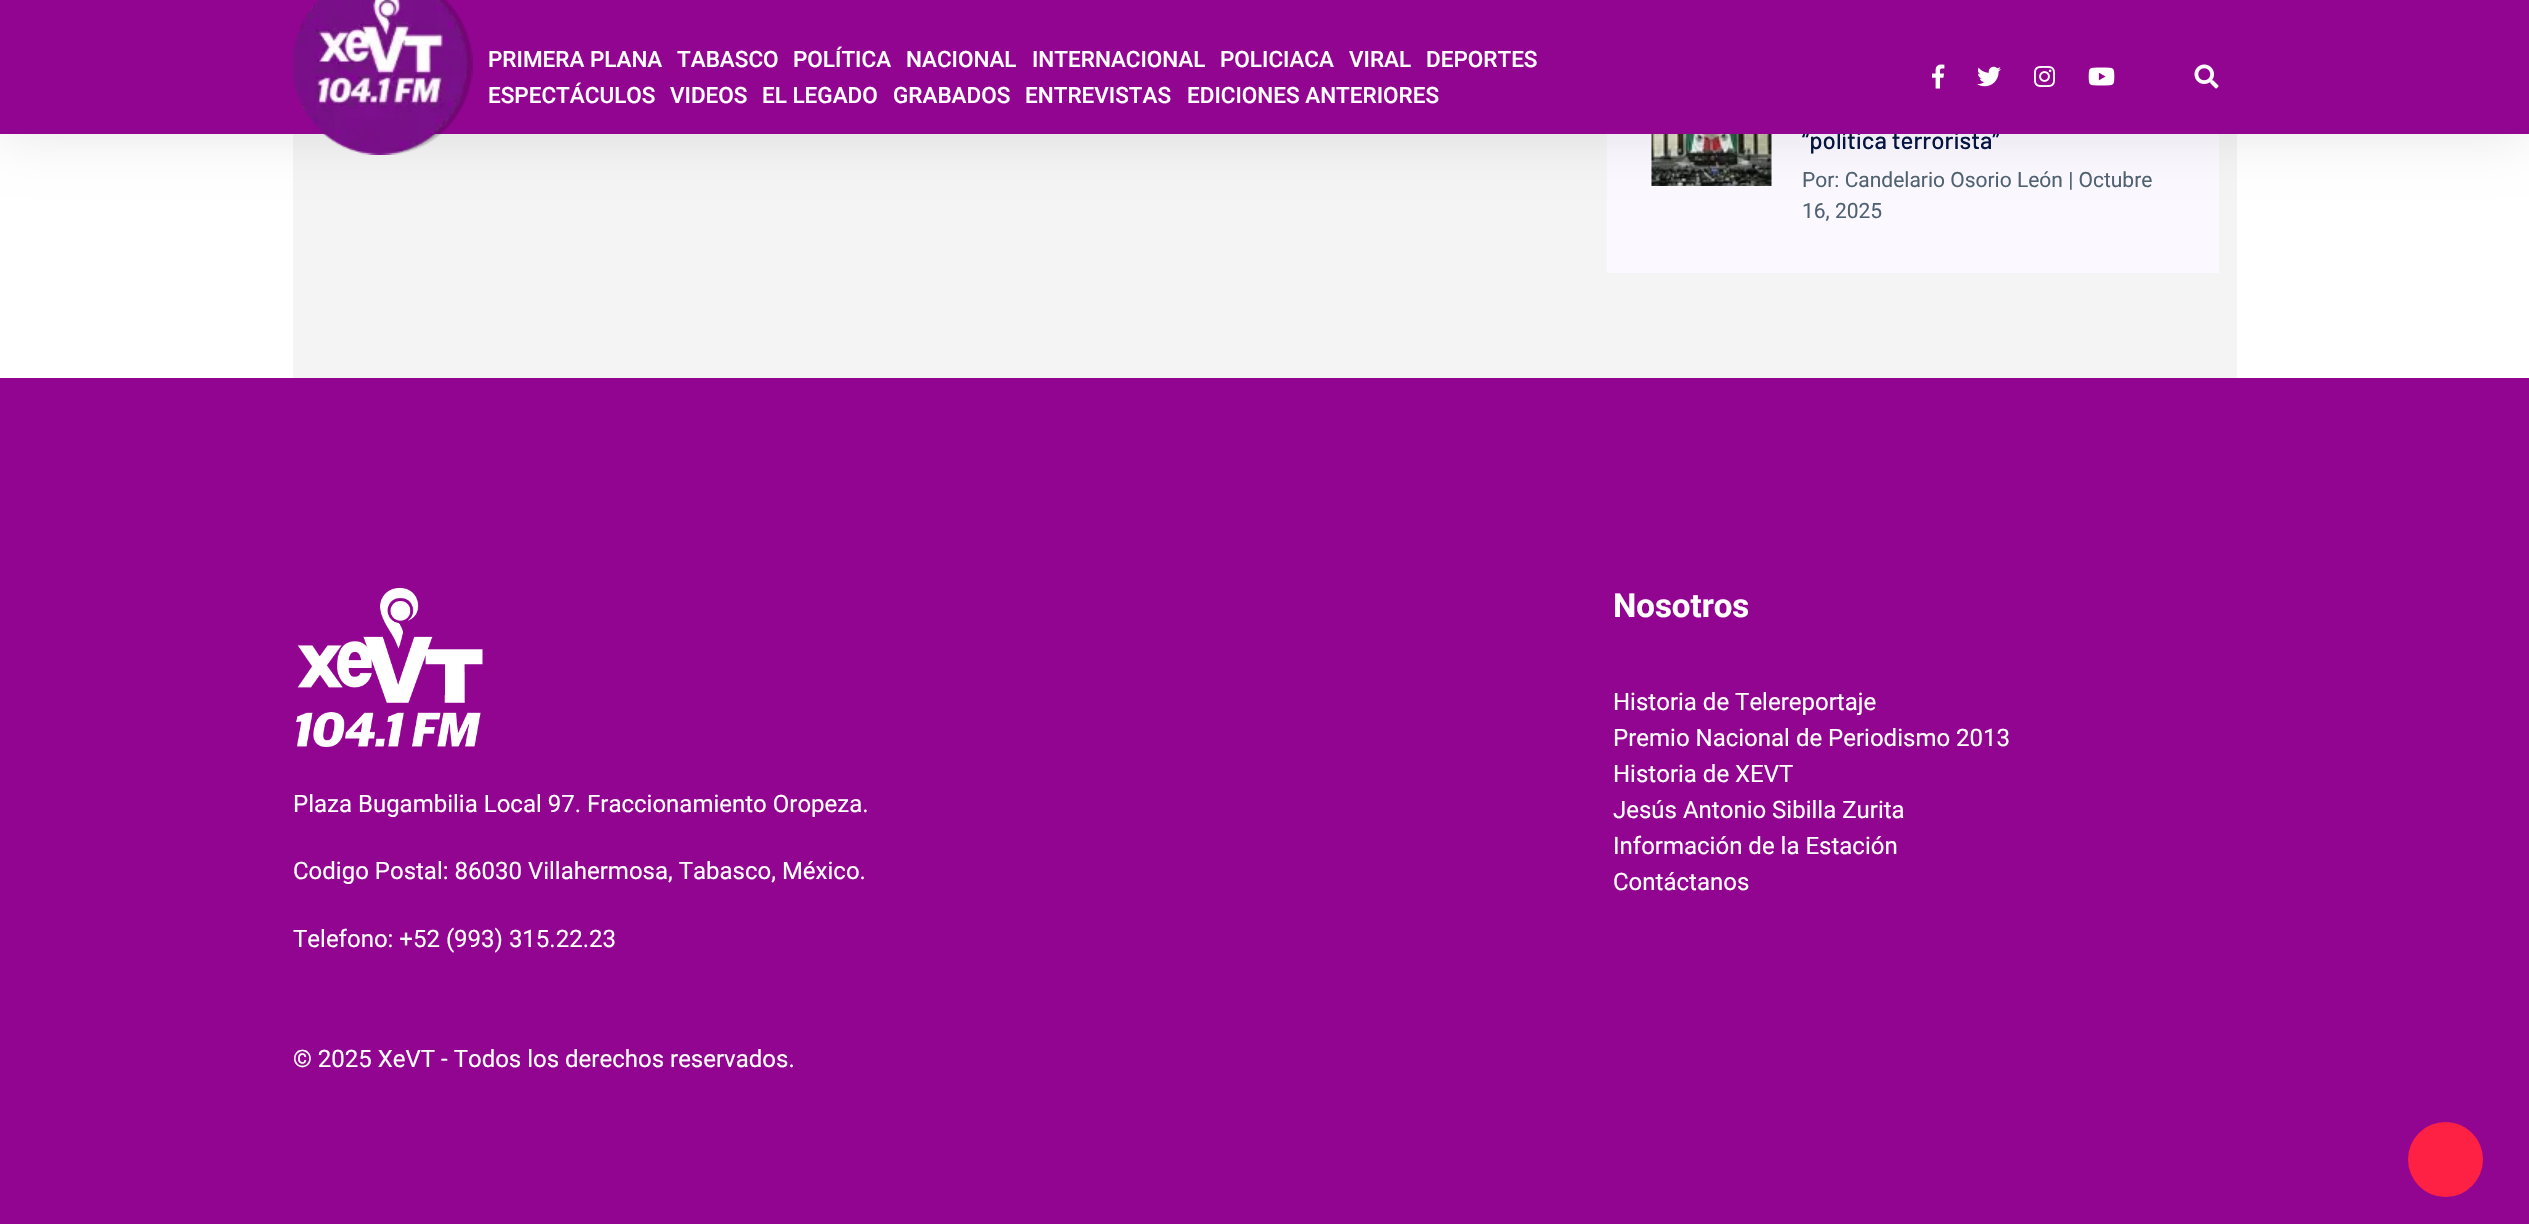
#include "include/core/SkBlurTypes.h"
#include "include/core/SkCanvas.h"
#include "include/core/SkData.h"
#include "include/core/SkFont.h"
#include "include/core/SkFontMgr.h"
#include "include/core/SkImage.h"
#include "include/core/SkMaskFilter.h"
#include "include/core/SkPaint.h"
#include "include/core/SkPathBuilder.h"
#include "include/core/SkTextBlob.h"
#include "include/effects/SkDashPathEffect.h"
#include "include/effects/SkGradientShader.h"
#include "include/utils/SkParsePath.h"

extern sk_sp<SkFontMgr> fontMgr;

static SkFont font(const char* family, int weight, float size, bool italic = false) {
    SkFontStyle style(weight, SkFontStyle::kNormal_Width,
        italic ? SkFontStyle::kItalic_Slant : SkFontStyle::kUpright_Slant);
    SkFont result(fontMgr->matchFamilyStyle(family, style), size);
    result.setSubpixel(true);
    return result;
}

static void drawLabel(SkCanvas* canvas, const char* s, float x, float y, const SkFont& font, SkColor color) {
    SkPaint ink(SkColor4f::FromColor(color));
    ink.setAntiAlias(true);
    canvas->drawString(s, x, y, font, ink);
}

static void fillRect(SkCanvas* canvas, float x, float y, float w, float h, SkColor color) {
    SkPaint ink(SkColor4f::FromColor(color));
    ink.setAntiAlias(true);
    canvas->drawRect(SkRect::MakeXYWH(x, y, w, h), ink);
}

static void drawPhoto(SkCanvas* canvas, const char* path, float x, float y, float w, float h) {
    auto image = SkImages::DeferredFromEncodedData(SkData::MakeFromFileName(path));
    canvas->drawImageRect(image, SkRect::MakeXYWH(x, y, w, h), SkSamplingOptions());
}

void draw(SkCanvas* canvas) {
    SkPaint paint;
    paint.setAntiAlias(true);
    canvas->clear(0xFFFFFFFF);
    fillRect(canvas, 293, 134, 1944, 244, 0xFFF4F4F4);
    fillRect(canvas, 1607, 134, 612, 139, 0xFFFBF9FF);
    drawPhoto(canvas, "assets/img7.png", 1651, 134, 121, 52);
    paint.setColor(0x1A000000);
    paint.setMaskFilter(SkMaskFilter::MakeBlur(kNormal_SkBlurStyle, 27));
    canvas->drawRect(SkRect::MakeXYWH(0, 0, 2529, 134), paint);
    paint.setMaskFilter(nullptr);
    SkFont font1 = font("Barlow", 500, 24);
    drawLabel(canvas, "“política terrorista”", 1802, 149, font1, 0xFF051441);
    fillRect(canvas, 0, 0, 2529, 134, 0xFF920591);
    drawPhoto(canvas, "assets/img1.png", 293, 0, 180, 155);
    SkFont font2 = font("Roboto", 500, 22.5f);
    drawLabel(canvas, "PRIMERA PLANA", 488, 67, font2, 0xFFFFFFFF);
    drawLabel(canvas, "TABASCO", 677, 67, font2, 0xFFFFFFFF);
    drawLabel(canvas, "POLÍTICA", 793, 67, font2, 0xFFFFFFFF);
    drawLabel(canvas, "NACIONAL", 906, 67, font2, 0xFFFFFFFF);
    drawLabel(canvas, "INTERNACIONAL", 1032, 67, font2, 0xFFFFFFFF);
    drawLabel(canvas, "POLICIACA", 1220, 67, font2, 0xFFFFFFFF);
    drawLabel(canvas, "VIRAL", 1349, 67, font2, 0xFFFFFFFF);
    drawLabel(canvas, "DEPORTES", 1426, 67, font2, 0xFFFFFFFF);
    drawLabel(canvas, "ESPECTÁCULOS", 488, 103, font2, 0xFFFFFFFF);
    drawLabel(canvas, "VIDEOS", 670, 103, font2, 0xFFFFFFFF);
    drawLabel(canvas, "EL LEGADO", 762, 103, font2, 0xFFFFFFFF);
    drawLabel(canvas, "GRABADOS", 893, 103, font2, 0xFFFFFFFF);
    drawLabel(canvas, "ENTREVISTAS", 1025, 103, font2, 0xFFFFFFFF);
    drawLabel(canvas, "EDICIONES ANTERIORES", 1187, 103, font2, 0xFFFFFFFF);
    drawPhoto(canvas, "assets/img2.png", 1932, 64, 13, 25);
    drawPhoto(canvas, "assets/img3.png", 1977, 66, 24, 21);
    drawPhoto(canvas, "assets/img4.png", 2034, 66, 21, 21);
    drawPhoto(canvas, "assets/img5.png", 2088, 67, 27, 19);
    drawPhoto(canvas, "assets/img6.png", 2194, 64, 25, 25);
    SkFont font3 = font("Roboto", 400, 21);
    drawLabel(canvas, "Por: Candelario Osorio León | Octubre", 1802, 187, font3, 0xFF506172);
    drawLabel(canvas, "16, 2025", 1802, 218, font3, 0xFF506172);
    fillRect(canvas, 0, 378, 2529, 846, 0xFF920591);
    drawPhoto(canvas, "assets/img8.png", 296, 588, 187, 159);
    SkFont font4 = font("Roboto", 400, 24);
    drawLabel(canvas, "Plaza Bugambilia Local 97. Fraccionamiento Oropeza.", 293, 812, font4, 0xFFFFFFFF);
    drawLabel(canvas, "Codigo Postal: 86030 Villahermosa, Tabasco, México.", 293, 879, font4, 0xFFFFFFFF);
    drawLabel(canvas, "Telefono: +52 (993) 315.22.23", 293, 947, font4, 0xFFFFFFFF);
    SkFont font5 = font("Roboto", 700, 33);
    drawLabel(canvas, "Nosotros", 1613, 617, font5, 0xFFFFFFFF);
    drawLabel(canvas, "Historia de Telereportaje", 1613, 710, font4, 0xFFFFFFFF);
    drawLabel(canvas, "Premio Nacional de Periodismo 2013", 1613, 746, font4, 0xFFFFFFFF);
    drawLabel(canvas, "Historia de XEVT", 1613, 782, font4, 0xFFFFFFFF);
    drawLabel(canvas, "Jesús Antonio Sibilla Zurita", 1613, 818, font4, 0xFFFFFFFF);
    drawLabel(canvas, "Información de la Estación", 1613, 854, font4, 0xFFFFFFFF);
    drawLabel(canvas, "Contáctanos", 1613, 890, font4, 0xFFFFFFFF);
    drawLabel(canvas, "© 2025 XeVT - Todos los derechos reservados.", 293, 1067, font4, 0xFFFFFFFF);
    paint.setColor(0xFFFF2143);
    canvas->drawCircle(2445.5f, 1159.5f, 37.5f, paint);
}
